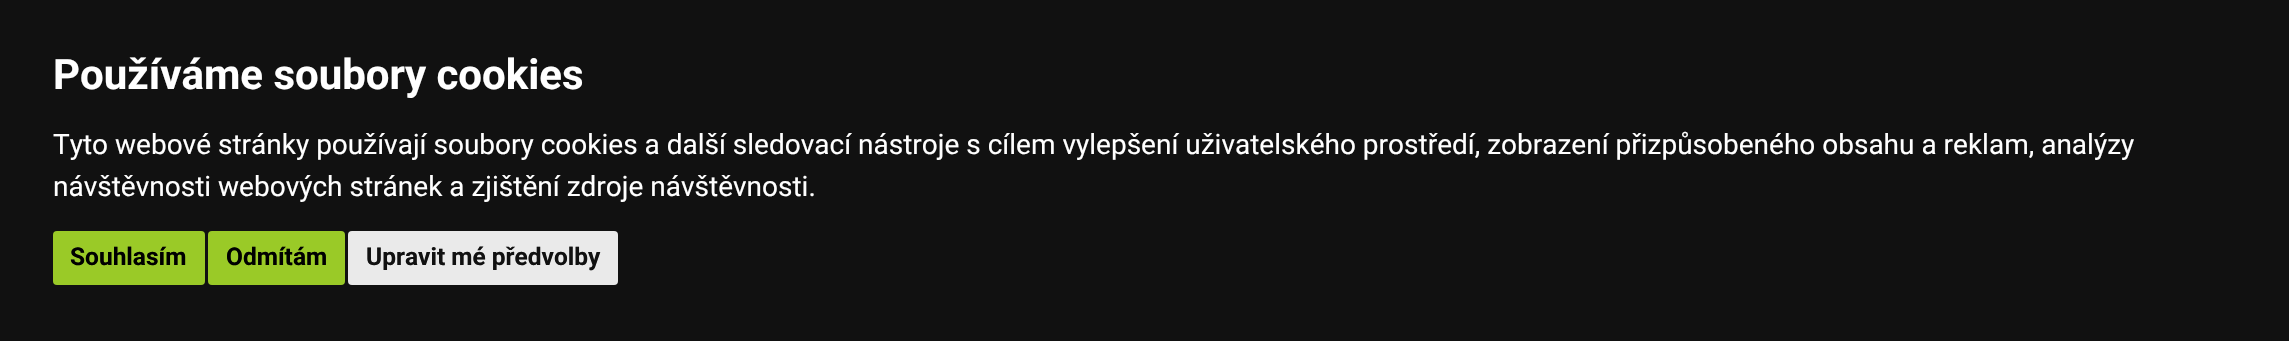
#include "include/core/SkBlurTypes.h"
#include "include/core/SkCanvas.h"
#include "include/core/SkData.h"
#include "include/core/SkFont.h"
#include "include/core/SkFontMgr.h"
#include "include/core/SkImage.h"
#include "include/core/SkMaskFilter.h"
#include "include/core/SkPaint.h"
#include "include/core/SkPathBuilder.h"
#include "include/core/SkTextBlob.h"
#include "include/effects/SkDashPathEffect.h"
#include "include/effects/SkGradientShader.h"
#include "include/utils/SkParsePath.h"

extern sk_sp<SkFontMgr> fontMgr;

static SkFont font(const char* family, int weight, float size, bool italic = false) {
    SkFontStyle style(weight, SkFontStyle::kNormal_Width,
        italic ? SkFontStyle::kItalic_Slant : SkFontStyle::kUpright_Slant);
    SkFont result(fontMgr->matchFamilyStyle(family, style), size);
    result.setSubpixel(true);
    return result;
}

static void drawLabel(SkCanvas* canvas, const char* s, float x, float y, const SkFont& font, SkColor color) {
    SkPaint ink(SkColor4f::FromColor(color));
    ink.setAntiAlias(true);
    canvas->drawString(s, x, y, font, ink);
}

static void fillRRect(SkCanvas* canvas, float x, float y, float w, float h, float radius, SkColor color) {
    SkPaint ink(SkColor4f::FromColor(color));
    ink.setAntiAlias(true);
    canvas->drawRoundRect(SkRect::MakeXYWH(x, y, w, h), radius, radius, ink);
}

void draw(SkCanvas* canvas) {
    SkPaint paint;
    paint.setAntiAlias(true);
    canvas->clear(0xFF111111);
    SkFont font1 = font("Roboto", 700, 42);
    drawLabel(canvas, "Používáme soubory cookies", 53, 89, font1, 0xFFFFFFFF);
    SkFont font2 = font("Roboto", 400, 28);
    drawLabel(canvas, "Tyto webové stránky používají soubory cookies a další sledovací nástroje s cílem vylepšení uživatelského prostředí, zobrazení přizpůsobeného obsahu a reklam, analýzy", 53, 154, font2, 0xFFFFFFFF);
    drawLabel(canvas, "návštěvnosti webových stránek a zjištění zdroje návštěvnosti.", 53, 196, font2, 0xFFFFFFFF);
    fillRRect(canvas, 53, 231, 152, 54, 4, 0xFF9ACA27);
    SkFont font3 = font("Roboto", 700, 24.5f);
    drawLabel(canvas, "Souhlasím", 70, 265, font3, 0xFF000000);
    fillRRect(canvas, 208, 231, 137, 54, 4, 0xFF9ACA27);
    drawLabel(canvas, "Odmítám", 226, 265, font3, 0xFF000000);
    fillRRect(canvas, 348, 231, 270, 54, 4, 0xFFEAEAEA);
    drawLabel(canvas, "Upravit mé předvolby", 366, 265, font3, 0xFF111111);
}
